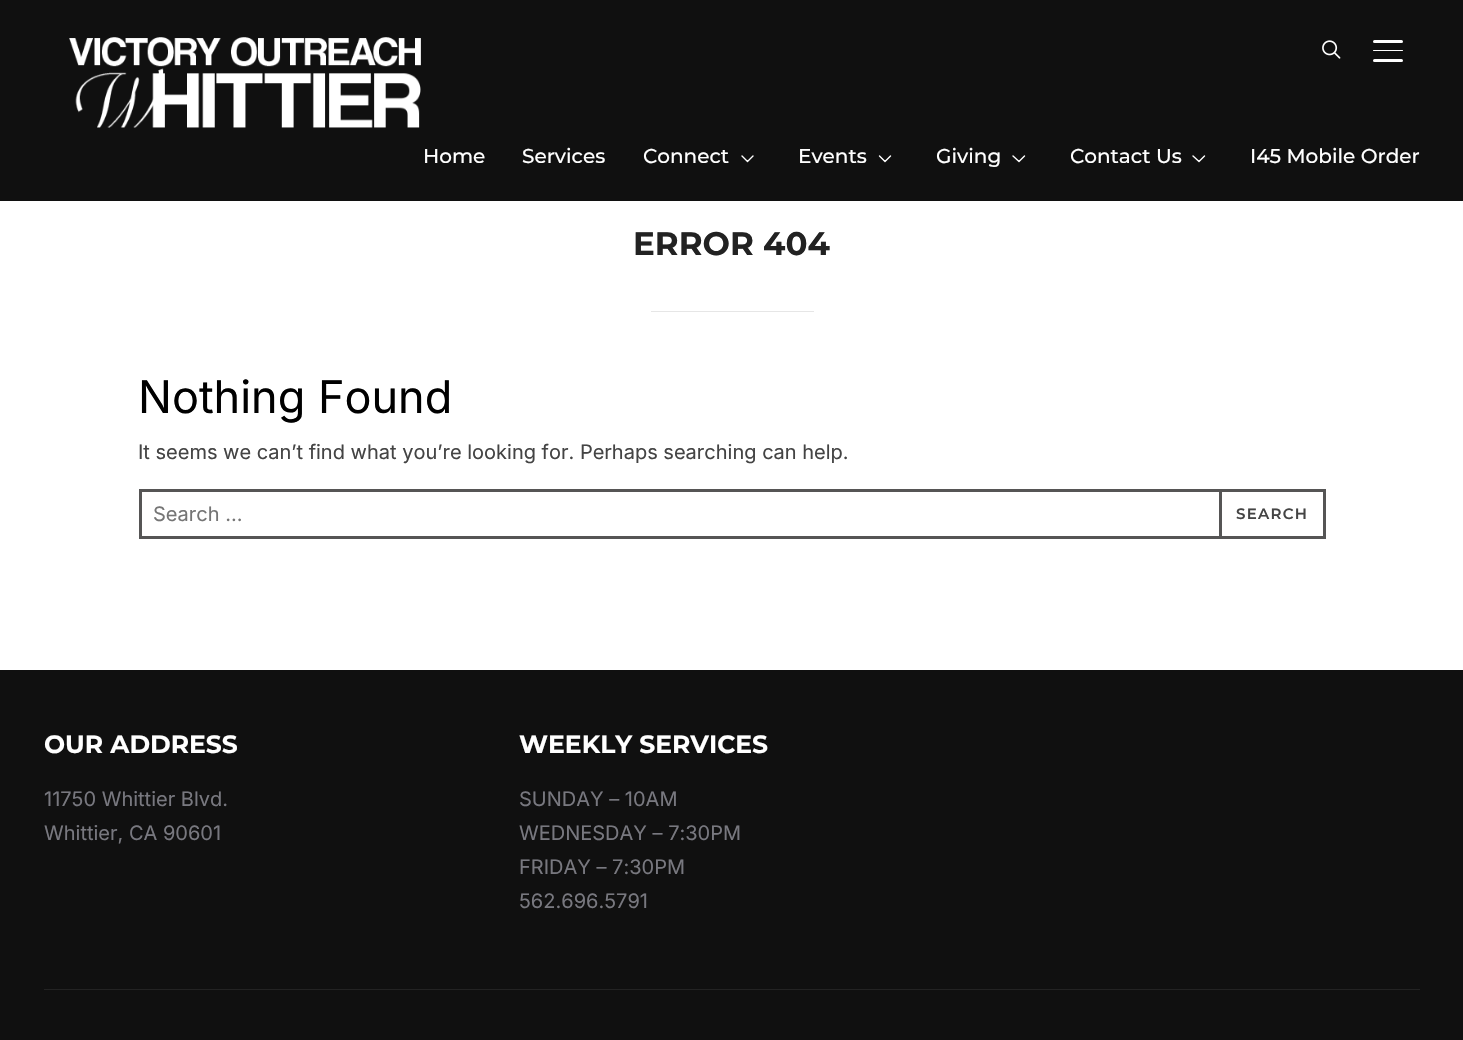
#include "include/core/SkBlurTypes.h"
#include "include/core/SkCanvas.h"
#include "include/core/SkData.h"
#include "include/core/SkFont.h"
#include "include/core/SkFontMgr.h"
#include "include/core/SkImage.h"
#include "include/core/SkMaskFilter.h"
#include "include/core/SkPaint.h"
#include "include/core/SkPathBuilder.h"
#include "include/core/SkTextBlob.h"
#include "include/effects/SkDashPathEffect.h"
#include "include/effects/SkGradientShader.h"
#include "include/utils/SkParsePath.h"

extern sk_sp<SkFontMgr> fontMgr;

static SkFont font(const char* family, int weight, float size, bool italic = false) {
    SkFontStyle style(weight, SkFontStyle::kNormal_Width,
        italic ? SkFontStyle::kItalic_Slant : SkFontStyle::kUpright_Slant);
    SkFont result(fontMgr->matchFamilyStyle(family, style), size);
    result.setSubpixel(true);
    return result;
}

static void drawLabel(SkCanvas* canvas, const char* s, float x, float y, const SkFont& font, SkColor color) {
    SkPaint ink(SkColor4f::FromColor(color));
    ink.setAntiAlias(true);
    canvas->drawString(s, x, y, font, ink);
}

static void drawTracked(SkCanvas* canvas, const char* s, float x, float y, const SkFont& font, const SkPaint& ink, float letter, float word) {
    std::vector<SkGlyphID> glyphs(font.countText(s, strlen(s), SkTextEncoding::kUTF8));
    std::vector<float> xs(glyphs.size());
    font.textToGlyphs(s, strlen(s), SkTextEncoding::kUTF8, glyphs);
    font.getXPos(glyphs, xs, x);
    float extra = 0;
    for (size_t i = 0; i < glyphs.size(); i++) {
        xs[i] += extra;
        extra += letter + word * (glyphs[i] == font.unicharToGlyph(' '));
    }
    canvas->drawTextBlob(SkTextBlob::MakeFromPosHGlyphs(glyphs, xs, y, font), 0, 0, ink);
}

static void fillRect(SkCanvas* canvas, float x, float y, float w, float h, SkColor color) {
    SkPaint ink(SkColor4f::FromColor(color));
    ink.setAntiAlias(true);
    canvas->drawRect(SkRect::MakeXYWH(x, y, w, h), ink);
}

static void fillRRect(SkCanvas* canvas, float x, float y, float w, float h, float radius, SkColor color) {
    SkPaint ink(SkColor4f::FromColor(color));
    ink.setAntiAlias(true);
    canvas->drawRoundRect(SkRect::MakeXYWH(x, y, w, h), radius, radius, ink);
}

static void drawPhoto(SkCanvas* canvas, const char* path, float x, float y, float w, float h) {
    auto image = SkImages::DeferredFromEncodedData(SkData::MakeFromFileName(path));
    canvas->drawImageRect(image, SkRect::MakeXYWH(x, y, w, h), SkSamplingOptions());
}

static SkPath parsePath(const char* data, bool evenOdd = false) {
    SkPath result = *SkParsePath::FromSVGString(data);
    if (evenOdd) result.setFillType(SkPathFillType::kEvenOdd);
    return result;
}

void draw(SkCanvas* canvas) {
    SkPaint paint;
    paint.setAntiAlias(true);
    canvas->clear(0xFFFFFFFF);
    fillRect(canvas, 0, 0, 1463, 201, 0xFF101010);
    drawPhoto(canvas, "assets/img1.png", 69, 37, 352, 91);
    drawPhoto(canvas, "assets/img2.png", 1322, 40, 19, 19);
    fillRRect(canvas, 1373, 40, 30, 3, 1.5f, 0xFFFFFFFF);
    fillRRect(canvas, 1373, 50, 30, 1, 0.5f, 0xFFFFFFFF);
    fillRRect(canvas, 1373, 59, 30, 3, 1.5f, 0xFFFFFFFF);
    SkFont font1 = font("Montserrat", 500, 20);
    drawLabel(canvas, "Home", 423, 163, font1, 0xFFFFFFFF);
    drawLabel(canvas, "Services", 522, 163, font1, 0xFFFFFFFF);
    drawLabel(canvas, "Connect", 643, 163, font1, 0xFFFFFFFF);
    paint.setStroke(true);
    paint.setStrokeWidth(1.4f);
    paint.setStrokeCap(SkPaint::kRound_Cap);
    paint.setStrokeJoin(SkPaint::kRound_Join);
    paint.setColor(0xFFFFFFFF);
    canvas->drawPath(parsePath("M742 156L747.5 161.5L753 156"), paint);
    drawLabel(canvas, "Events", 798, 163, font1, 0xFFFFFFFF);
    canvas->drawPath(parsePath("M879.5 156L885 161.5L890.5 156"), paint);
    drawLabel(canvas, "Giving", 936, 163, font1, 0xFFFFFFFF);
    canvas->drawPath(parsePath("M1013 156L1019 161.5L1024.5 156"), paint);
    drawLabel(canvas, "Contact Us", 1070, 163, font1, 0xFFFFFFFF);
    canvas->drawPath(parsePath("M1193 156L1199 161.5L1204.5 156"), paint);
    drawLabel(canvas, "I45 Mobile Order", 1250, 163, font1, 0xFFFFFFFF);
    SkFont font2 = font("Montserrat", 700, 32.5f);
    drawLabel(canvas, "ERROR 404", 633, 255, font2, 0xFF222222);
    fillRect(canvas, 651, 311, 163, 1, 0xFFE6E6E6);
    SkFont font3 = font("Inter", 400, 45);
    drawLabel(canvas, "Nothing Found", 138, 413, font3, 0xFF000000);
    SkFont font4 = font("Inter", 400, 20);
    drawLabel(canvas, "It seems we can’t find what you’re looking for. Perhaps searching can help.", 138, 459, font4, 0xFF444444);
    paint.setStrokeWidth(3);
    paint.setStrokeCap(SkPaint::kButt_Cap);
    paint.setStrokeJoin(SkPaint::kMiter_Join);
    paint.setColor(0xFF565555);
    canvas->drawRect(SkRect::MakeXYWH(140.5f, 490.5f, 1184, 47), paint);
    drawLabel(canvas, "Search …", 153, 521, font4, 0xFF757575);
    canvas->drawRect(SkRect::MakeXYWH(1220.5f, 490.5f, 104, 47), paint);
    SkFont font5 = font("Montserrat", 600, 15);
    paint.setStroke(false);
    paint.setColor(0xFF444444);
    drawTracked(canvas, "SEARCH", 1236, 519, font5, paint, 1.25f, 0);
    fillRect(canvas, 0, 670, 1463, 370, 0xFF101010);
    SkFont font6 = font("Montserrat", 700, 25);
    drawLabel(canvas, "OUR ADDRESS", 44, 753, font6, 0xFFFFFFFF);
    drawLabel(canvas, "11750 Whittier Blvd.", 44, 806, font4, 0xFF78787F);
    drawLabel(canvas, "Whittier, CA 90601", 44, 840, font4, 0xFF78787F);
    drawLabel(canvas, "WEEKLY SERVICES", 519, 753, font6, 0xFFFFFFFF);
    drawLabel(canvas, "SUNDAY – 10AM", 519, 806, font4, 0xFF78787F);
    drawLabel(canvas, "WEDNESDAY – 7:30PM", 519, 840, font4, 0xFF78787F);
    drawLabel(canvas, "FRIDAY – 7:30PM", 519, 874, font4, 0xFF78787F);
    drawLabel(canvas, "562.696.5791", 519, 908, font4, 0xFF78787F);
    fillRect(canvas, 44, 989, 1376, 1, 0xFF232323);
}
